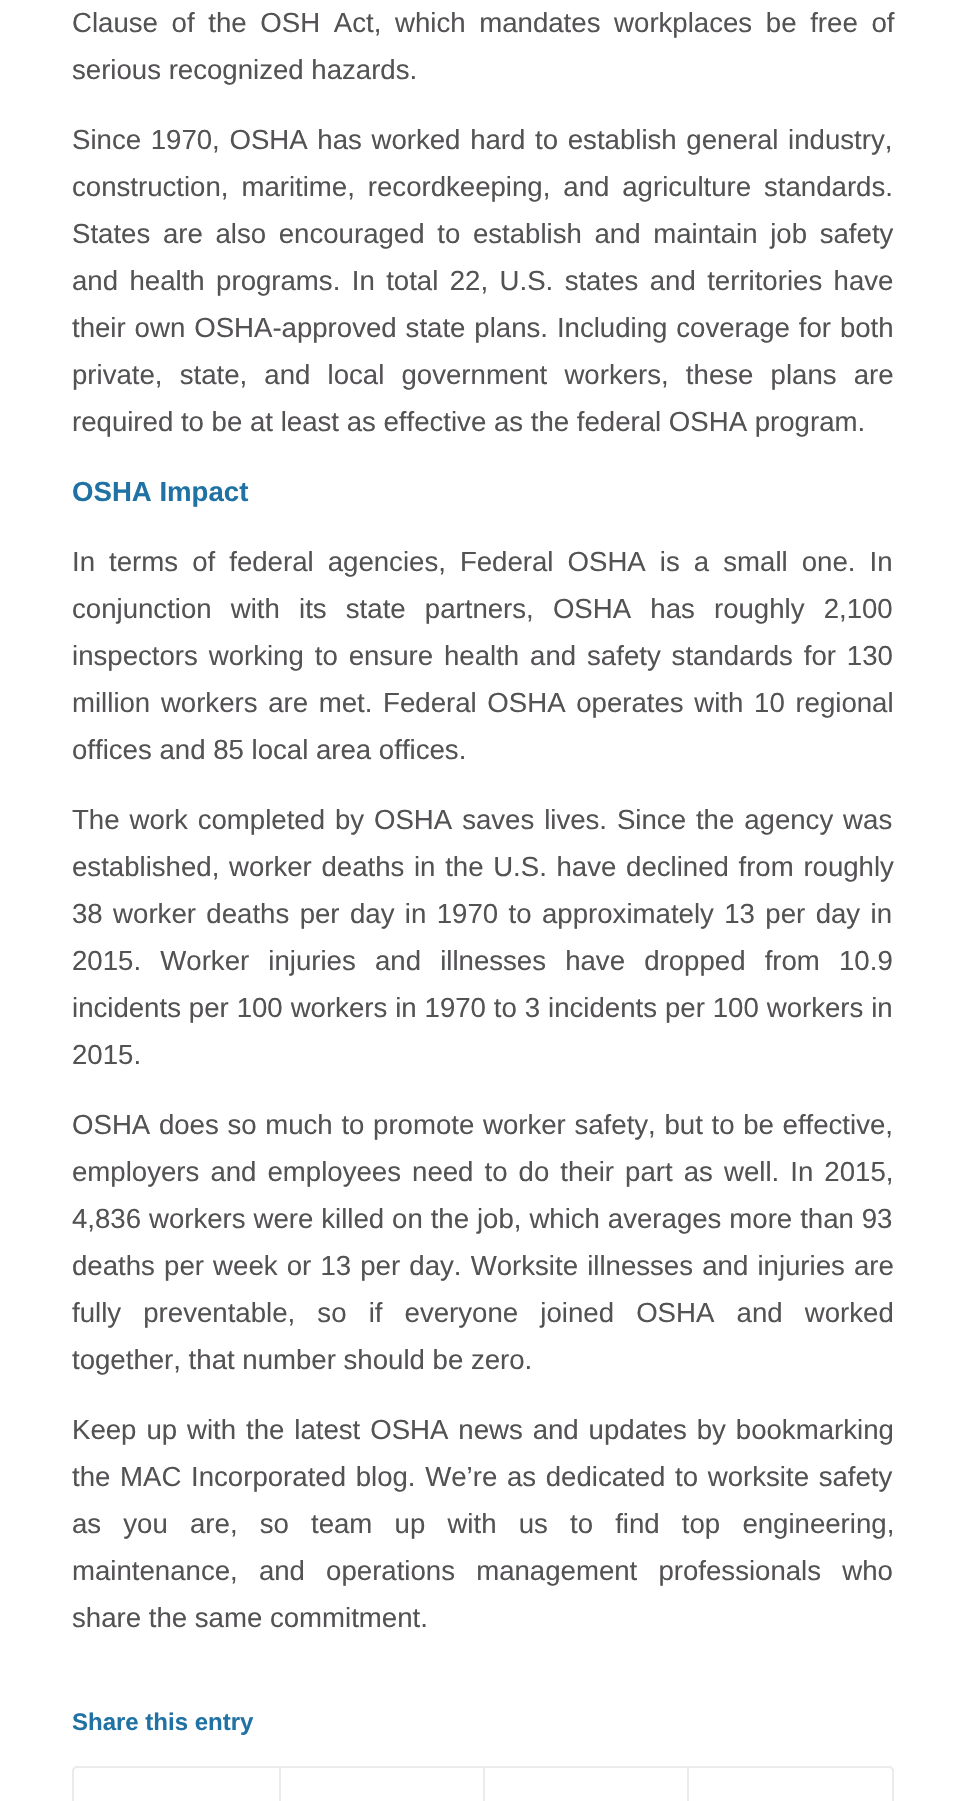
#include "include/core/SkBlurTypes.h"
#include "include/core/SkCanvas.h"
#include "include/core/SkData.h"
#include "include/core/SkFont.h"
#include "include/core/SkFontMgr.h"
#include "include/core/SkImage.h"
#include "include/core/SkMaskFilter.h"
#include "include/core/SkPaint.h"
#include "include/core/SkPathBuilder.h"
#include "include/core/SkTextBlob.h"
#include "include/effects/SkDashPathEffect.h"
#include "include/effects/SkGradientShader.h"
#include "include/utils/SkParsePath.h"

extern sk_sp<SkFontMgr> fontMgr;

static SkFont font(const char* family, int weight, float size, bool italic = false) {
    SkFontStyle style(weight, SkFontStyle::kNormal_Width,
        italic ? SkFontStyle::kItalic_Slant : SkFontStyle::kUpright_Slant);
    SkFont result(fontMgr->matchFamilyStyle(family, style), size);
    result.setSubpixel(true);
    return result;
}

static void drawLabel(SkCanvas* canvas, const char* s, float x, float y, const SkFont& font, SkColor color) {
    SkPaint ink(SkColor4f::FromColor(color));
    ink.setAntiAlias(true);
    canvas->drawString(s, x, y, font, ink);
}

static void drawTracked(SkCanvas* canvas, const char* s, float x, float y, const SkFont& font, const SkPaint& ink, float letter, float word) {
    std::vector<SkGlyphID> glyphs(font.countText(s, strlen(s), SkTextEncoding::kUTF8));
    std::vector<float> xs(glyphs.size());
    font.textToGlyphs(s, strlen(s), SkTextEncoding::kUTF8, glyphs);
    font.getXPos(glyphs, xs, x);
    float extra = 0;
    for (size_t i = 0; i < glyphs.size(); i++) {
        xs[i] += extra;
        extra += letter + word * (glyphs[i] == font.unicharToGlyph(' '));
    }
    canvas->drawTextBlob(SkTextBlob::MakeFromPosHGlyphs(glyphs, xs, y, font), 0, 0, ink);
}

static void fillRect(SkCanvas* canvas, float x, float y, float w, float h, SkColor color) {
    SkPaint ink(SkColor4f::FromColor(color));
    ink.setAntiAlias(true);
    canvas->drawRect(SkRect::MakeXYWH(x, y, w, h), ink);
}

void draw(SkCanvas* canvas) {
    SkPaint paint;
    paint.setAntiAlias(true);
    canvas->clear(0xFFFFFFFF);
    SkFont font1 = font("Liberation Sans", 400, 27.6f);
    paint.setColor(0xFF545254);
    drawTracked(canvas, "Clause of the OSH Act, which mandates workplaces be free of", 72, 32, font1, paint, 0, 6);
    drawLabel(canvas, "serious recognized hazards.", 72, 79, font1, 0xFF545254);
    drawTracked(canvas, "Since 1970, OSHA has worked hard to establish general industry,", 72, 149, font1, paint, 0, 2);
    drawTracked(canvas, "construction, maritime, recordkeeping, and agriculture standards.", 72, 196, font1, paint, 0, 5.25f);
    drawTracked(canvas, "States are also encouraged to establish and maintain job safety", 72, 243, font1, paint, 0, 5);
    drawTracked(canvas, "and health programs. In total 22, U.S. states and territories have", 72, 290, font1, paint, 0, 3.75f);
    drawTracked(canvas, "their own OSHA-approved state plans. Including coverage for both", 72, 337, font1, paint, 0, 1.25f);
    drawTracked(canvas, "private, state, and local government workers, these plans are", 72, 384, font1, paint, 0, 9.5f);
    drawLabel(canvas, "required to be at least as effective as the federal OSHA program.", 72, 431, font1, 0xFF545254);
    SkFont font2 = font("Liberation Sans", 700, 27.6f);
    drawLabel(canvas, "OSHA Impact", 72, 501, font2, 0xFF1F72A3);
    drawTracked(canvas, "In terms of federal agencies, Federal OSHA is a small one. In", 72, 571, font1, paint, 0, 6.4f);
    drawTracked(canvas, "conjunction with its state partners, OSHA has roughly 2,100", 72, 618, font1, paint, 0, 11.5f);
    drawTracked(canvas, "inspectors working to ensure health and safety standards for 130", 72, 665, font1, paint, 0, 3.25f);
    drawTracked(canvas, "million workers are met. Federal OSHA operates with 10 regional", 72, 712, font1, paint, 0, 3);
    drawLabel(canvas, "offices and 85 local area offices.", 72, 759, font1, 0xFF545254);
    drawTracked(canvas, "The work completed by OSHA saves lives. Since the agency was", 72, 829, font1, paint, 0, 2.25f);
    drawTracked(canvas, "established, worker deaths in the U.S. have declined from roughly", 72, 876, font1, paint, 0, 2);
    drawTracked(canvas, "38 worker deaths per day in 1970 to approximately 13 per day in", 72, 923, font1, paint, 0, 2.75f);
    drawTracked(canvas, "2015. Worker injuries and illnesses have dropped from 10.9", 72, 970, font1, paint, 0, 11.5f);
    drawTracked(canvas, "incidents per 100 workers in 1970 to 3 incidents per 100 workers in", 72, 1017, font1, paint, 0, 0.25f);
    drawLabel(canvas, "2015.", 72, 1064, font1, 0xFF545254);
    drawTracked(canvas, "OSHA does so much to promote worker safety, but to be effective,", 72, 1134, font1, paint, 0, 1);
    drawTracked(canvas, "employers and employees need to do their part as well. In 2015,", 72, 1181, font1, paint, 0, 3.4f);
    drawTracked(canvas, "4,836 workers were killed on the job, which averages more than 93", 72, 1228, font1, paint, 0, 0.25f);
    drawTracked(canvas, "deaths per week or 13 per day. Worksite illnesses and injuries are", 72, 1275, font1, paint, 0, 1.5f);
    drawTracked(canvas, "fully preventable, so if everyone joined OSHA and worked", 72, 1322, font1, paint, 0, 14.5f);
    drawLabel(canvas, "together, that number should be zero.", 72, 1369, font1, 0xFF545254);
    drawTracked(canvas, "Keep up with the latest OSHA news and updates by bookmarking", 72, 1439, font1, paint, 0, 2.25f);
    drawTracked(canvas, "the MAC Incorporated blog. We’re as dedicated to worksite safety", 72, 1486, font1, paint, 0, 2);
    drawTracked(canvas, "as you are, so", 72, 1533, font1, paint, 0, 14.5f);
    drawTracked(canvas, "team up with us", 311, 1533, font1, paint, 0, 14.5f);
    drawTracked(canvas, "to find top engineering,", 570, 1533, font1, paint, 0, 14.5f);
    drawTracked(canvas, "maintenance, and operations management professionals who", 72, 1580, font1, paint, 0, 13.5f);
    drawLabel(canvas, "share the same commitment.", 72, 1627, font1, 0xFF545254);
    SkFont font3 = font("Liberation Sans", 700, 24);
    drawLabel(canvas, "Share this entry", 72, 1730, font3, 0xFF1F72A3);
    paint.setStroke(true);
    paint.setStrokeWidth(2);
    paint.setColor(0xFFEBEBEB);
    canvas->drawRoundRect(SkRect::MakeXYWH(73, 1767, 820, 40), 4, 4, paint);
    fillRect(canvas, 279, 1767, 2, 34, 0xFFEBEBEB);
    fillRect(canvas, 483, 1767, 2, 34, 0xFFEBEBEB);
    fillRect(canvas, 687, 1767, 2, 34, 0xFFEBEBEB);
}
